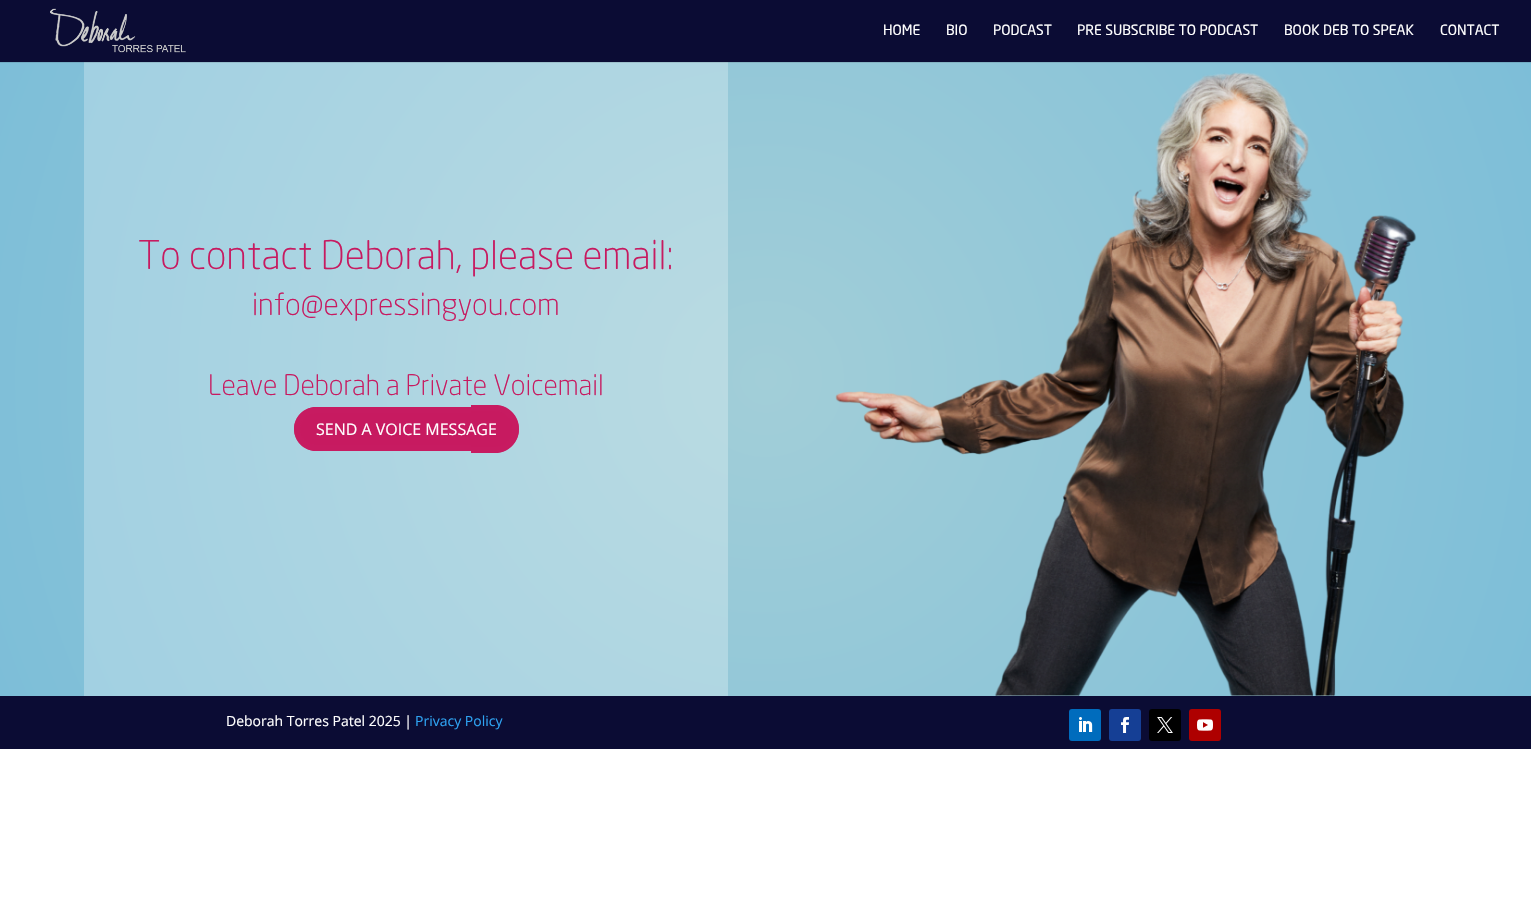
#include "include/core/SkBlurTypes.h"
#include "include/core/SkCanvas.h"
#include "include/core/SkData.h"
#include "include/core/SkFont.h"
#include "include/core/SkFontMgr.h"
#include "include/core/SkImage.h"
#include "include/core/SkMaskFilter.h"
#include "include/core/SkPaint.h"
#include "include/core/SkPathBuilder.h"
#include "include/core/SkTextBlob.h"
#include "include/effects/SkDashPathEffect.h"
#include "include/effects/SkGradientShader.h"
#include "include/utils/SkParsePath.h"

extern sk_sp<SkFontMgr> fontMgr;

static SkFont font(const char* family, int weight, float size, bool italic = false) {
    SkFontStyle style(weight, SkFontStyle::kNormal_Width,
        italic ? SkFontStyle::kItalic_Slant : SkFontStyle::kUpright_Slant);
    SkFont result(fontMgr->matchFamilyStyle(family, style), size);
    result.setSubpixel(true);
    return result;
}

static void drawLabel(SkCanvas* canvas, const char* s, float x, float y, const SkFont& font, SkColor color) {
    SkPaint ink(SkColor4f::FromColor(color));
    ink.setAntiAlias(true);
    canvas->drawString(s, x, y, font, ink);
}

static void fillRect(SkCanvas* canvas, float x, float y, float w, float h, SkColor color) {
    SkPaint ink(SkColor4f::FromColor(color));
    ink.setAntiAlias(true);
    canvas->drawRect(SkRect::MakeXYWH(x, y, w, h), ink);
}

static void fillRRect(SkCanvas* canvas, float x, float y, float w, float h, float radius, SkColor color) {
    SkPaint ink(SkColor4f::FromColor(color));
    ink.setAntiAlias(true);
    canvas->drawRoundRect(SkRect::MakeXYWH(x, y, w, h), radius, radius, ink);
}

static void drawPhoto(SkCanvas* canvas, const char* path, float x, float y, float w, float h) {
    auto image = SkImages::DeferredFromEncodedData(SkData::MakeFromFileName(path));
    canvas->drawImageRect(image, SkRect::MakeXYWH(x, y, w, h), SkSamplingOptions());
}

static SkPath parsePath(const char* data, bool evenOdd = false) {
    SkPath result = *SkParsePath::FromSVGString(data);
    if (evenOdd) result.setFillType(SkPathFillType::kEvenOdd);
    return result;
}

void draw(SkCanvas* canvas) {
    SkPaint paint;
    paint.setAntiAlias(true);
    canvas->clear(0xFFFFFFFF);
    fillRect(canvas, 0, 0, 1531, 62, 0xFF0B0C34);
    drawPhoto(canvas, "assets/img1.png", 50, 8, 136, 45);
    SkFont font1 = font("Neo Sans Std", 400, 14);
    drawLabel(canvas, "HOME", 883, 35, font1, 0xFFFFFFFF);
    drawLabel(canvas, "BIO", 946, 35, font1, 0xFFFFFFFF);
    drawLabel(canvas, "PODCAST", 993, 35, font1, 0xFFFFFFFF);
    drawLabel(canvas, "PRE SUBSCRIBE TO PODCAST", 1077, 35, font1, 0xFFFFFFFF);
    drawLabel(canvas, "BOOK DEB TO SPEAK", 1284, 35, font1, 0xFFFFFFFF);
    drawLabel(canvas, "CONTACT", 1440, 35, font1, 0xFFFFFFFF);
    {
        const SkColor colors[] = {0xFFA2CED8, 0xFF7DBED8};
        const float stops[] = {0, 1};
        paint.setShader(SkGradientShader::MakeRadial({766, 379}, 829, colors, stops, 2, SkTileMode::kClamp));
        paint.setAlpha(255);
    }
    canvas->drawRect(SkRect::MakeXYWH(0, 63, 1531, 633), paint);
    {
        const SkColor colors[] = {0xFF92B9C2, 0xFF71ABC2};
        const float stops[] = {0, 1};
        paint.setShader(SkGradientShader::MakeRadial({766, 379}, 829, colors, stops, 2, SkTileMode::kClamp));
        paint.setAlpha(255);
    }
    canvas->drawRect(SkRect::MakeXYWH(0, 62, 1531, 1), paint);
    {
        const SkColor colors[] = {0xFFBADBE2, 0xFF9FCFE2};
        const float stops[] = {0, 1};
        paint.setShader(SkGradientShader::MakeRadial({766, 379}, 829, colors, stops, 2, SkTileMode::kClamp));
        paint.setAlpha(255);
    }
    canvas->drawRect(SkRect::MakeXYWH(84, 63, 644, 633), paint);
    {
        const SkColor colors[] = {0xFFA7C5CB, 0xFF8FBACB};
        const float stops[] = {0, 1};
        paint.setShader(SkGradientShader::MakeRadial({766, 379}, 829, colors, stops, 2, SkTileMode::kClamp));
        paint.setAlpha(255);
    }
    canvas->drawRect(SkRect::MakeXYWH(84, 62, 644, 1), paint);
    SkFont font2 = font("Neo Sans Std", 300, 39);
    drawLabel(canvas, "To contact Deborah, please email:", 138, 269, font2, 0xFFC71A60);
    SkFont font3 = font("Neo Sans Std", 300, 30);
    drawLabel(canvas, "info@expressingyou.com", 252, 315, font3, 0xFFC71A60);
    SkFont font4 = font("Neo Sans Std", 300, 28);
    drawLabel(canvas, "Leave Deborah a Private Voicemail", 208, 395, font4, 0xFFC71A60);
    paint.setShader(nullptr);
    paint.setColor(0xFFC71A60);
    canvas->drawPath(parsePath("M316 407H497V451H316C304 451 294 441 294 429C294 417 304 407 316 407Z"), paint);
    paint.setColor(0xD6C71A60);
    canvas->drawPath(parsePath("M316 407H497V451H316C304 451 294 441 294 429C294 417 304 407 316 407ZM316 413H497V445H316C307 445 300 438 300 429C300 420 307 413 316 413Z", true), paint);
    paint.setColor(0xFFC71A60);
    canvas->drawPath(parsePath("M471 405H495C508.5 405 519 415.5 519 429C519 442.5 508.5 453 495 453H471Z"), paint);
    paint.setColor(0xD6C71A60);
    canvas->drawPath(parsePath("M471 405H495C508 405 519 416 519 429C519 442 508 453 495 453H471ZM471 411H495C505 411 513 419 513 429C513 439 505 447 495 447H471Z", true), paint);
    SkFont font5 = font("Open Sans", 400, 16);
    drawLabel(canvas, "SEND A VOICE MESSAGE", 316, 435, font5, 0xFFFFFFFF);
    drawPhoto(canvas, "assets/img2.png", 835, 72, 582, 624);
    fillRect(canvas, 0, 696, 1531, 53, 0xFF0B0C34);
    SkFont font6 = font("Open Sans", 400, 14);
    drawLabel(canvas, "Deborah Torres Patel 2025 |", 226, 726, font6, 0xFFFFFFFF);
    drawLabel(canvas, "Privacy Policy", 415, 726, font6, 0xFF2EA3F2);
    fillRRect(canvas, 1069, 709, 32, 32, 3, 0xFF006CBD);
    drawPhoto(canvas, "assets/img3.png", 1079, 717, 14, 15);
    fillRRect(canvas, 1109, 709, 32, 32, 3, 0xFF153F95);
    drawPhoto(canvas, "assets/img4.png", 1121, 717, 8, 16);
    fillRRect(canvas, 1149, 709, 32, 32, 3, 0xFF000000);
    drawPhoto(canvas, "assets/img5.png", 1157, 717, 16, 16);
    fillRRect(canvas, 1189, 709, 32, 32, 3, 0xFFAE0000);
    drawPhoto(canvas, "assets/img6.png", 1197, 719, 16, 12);
}
